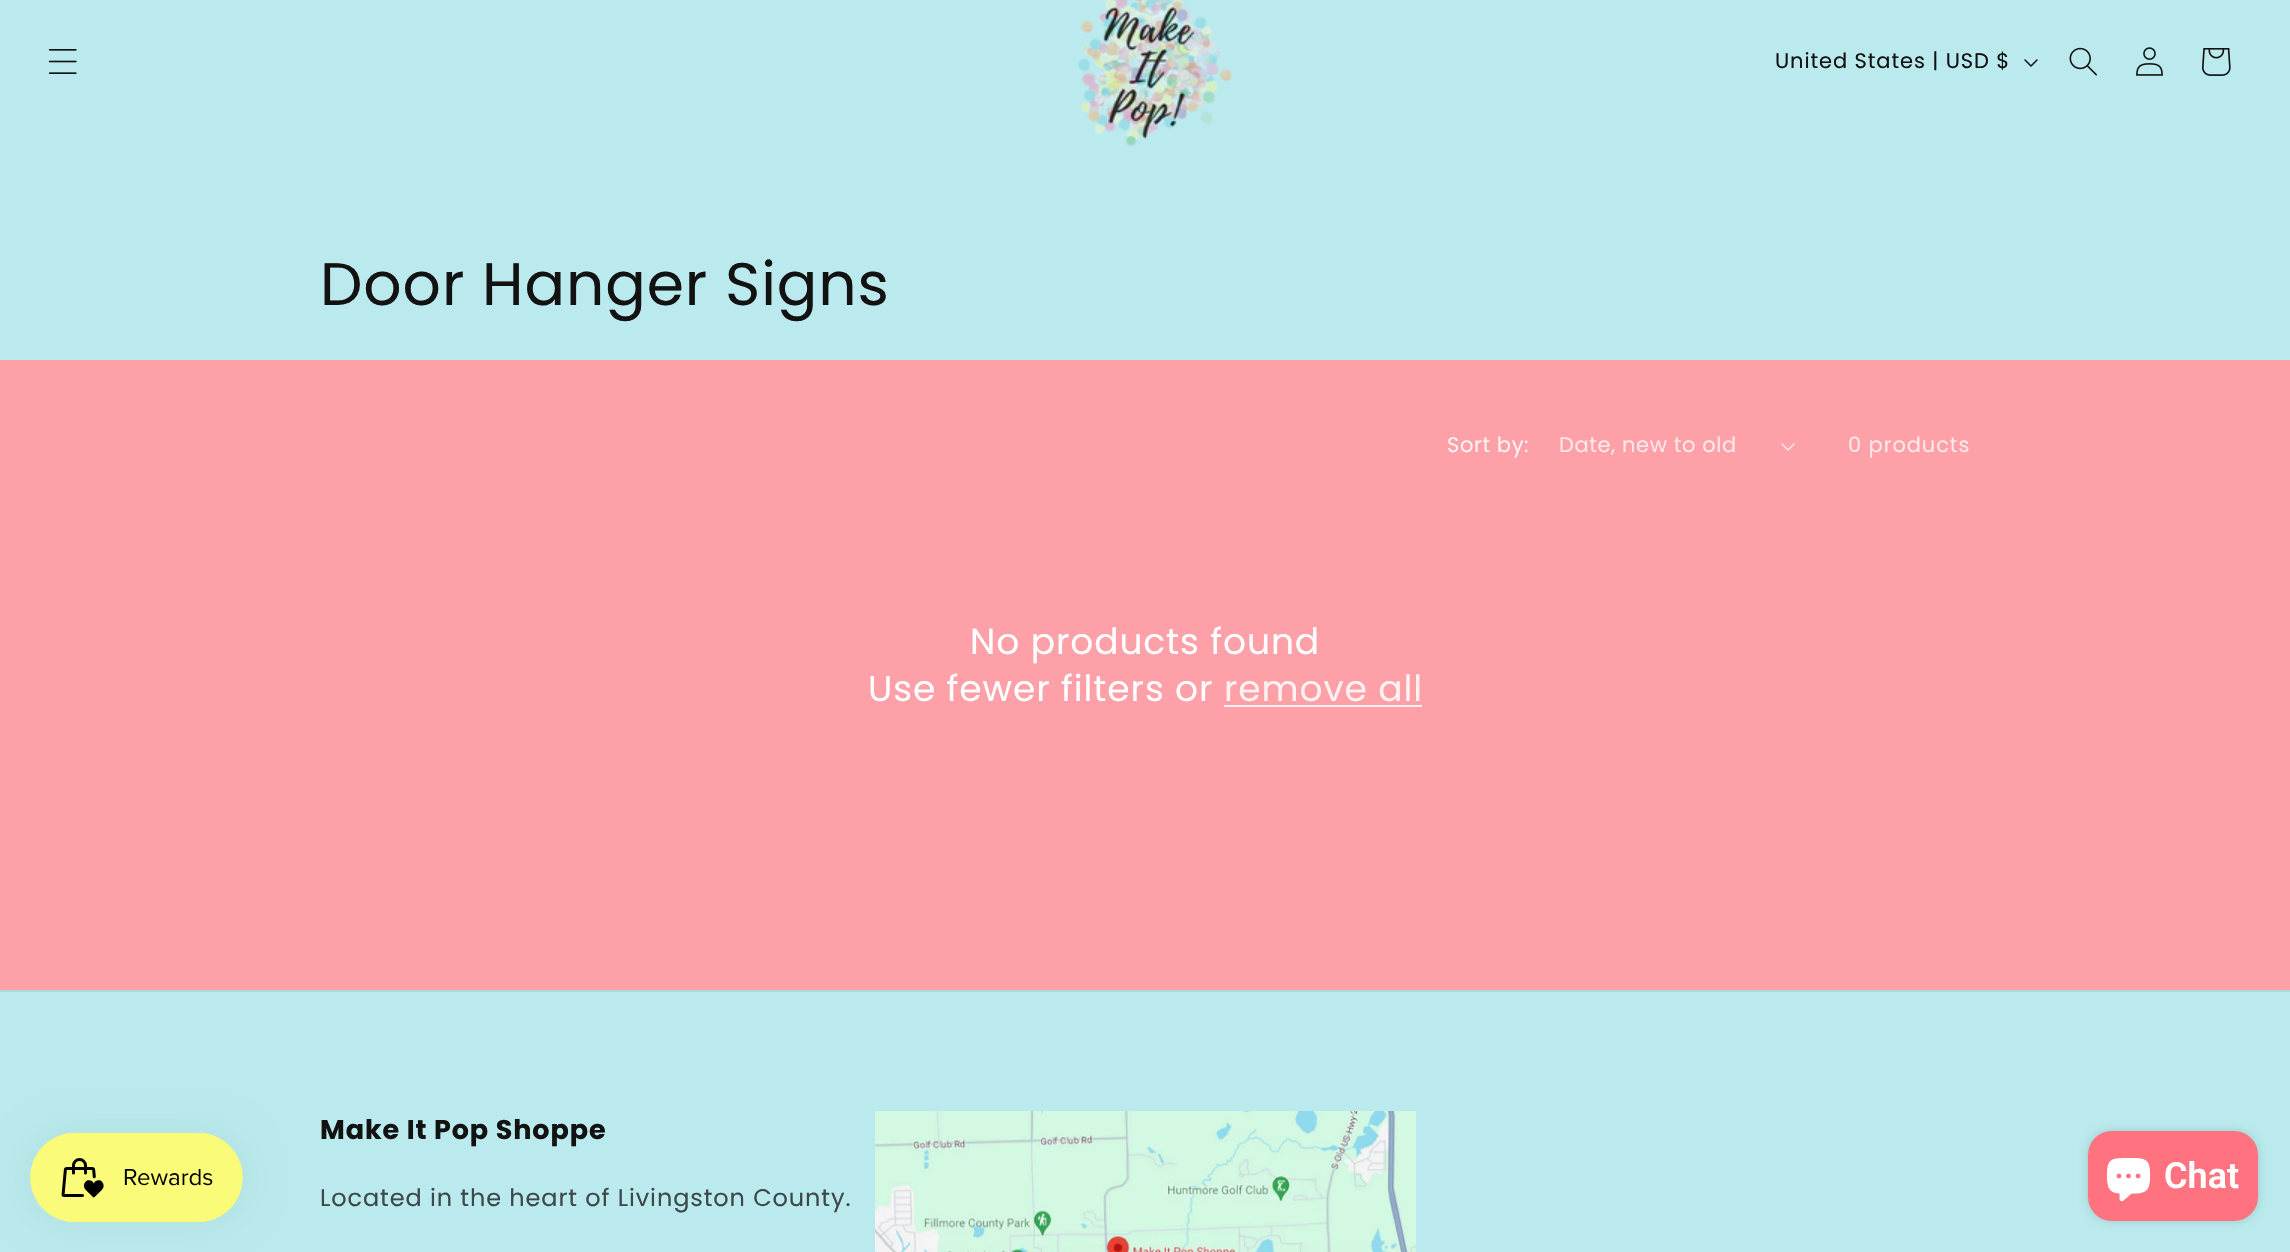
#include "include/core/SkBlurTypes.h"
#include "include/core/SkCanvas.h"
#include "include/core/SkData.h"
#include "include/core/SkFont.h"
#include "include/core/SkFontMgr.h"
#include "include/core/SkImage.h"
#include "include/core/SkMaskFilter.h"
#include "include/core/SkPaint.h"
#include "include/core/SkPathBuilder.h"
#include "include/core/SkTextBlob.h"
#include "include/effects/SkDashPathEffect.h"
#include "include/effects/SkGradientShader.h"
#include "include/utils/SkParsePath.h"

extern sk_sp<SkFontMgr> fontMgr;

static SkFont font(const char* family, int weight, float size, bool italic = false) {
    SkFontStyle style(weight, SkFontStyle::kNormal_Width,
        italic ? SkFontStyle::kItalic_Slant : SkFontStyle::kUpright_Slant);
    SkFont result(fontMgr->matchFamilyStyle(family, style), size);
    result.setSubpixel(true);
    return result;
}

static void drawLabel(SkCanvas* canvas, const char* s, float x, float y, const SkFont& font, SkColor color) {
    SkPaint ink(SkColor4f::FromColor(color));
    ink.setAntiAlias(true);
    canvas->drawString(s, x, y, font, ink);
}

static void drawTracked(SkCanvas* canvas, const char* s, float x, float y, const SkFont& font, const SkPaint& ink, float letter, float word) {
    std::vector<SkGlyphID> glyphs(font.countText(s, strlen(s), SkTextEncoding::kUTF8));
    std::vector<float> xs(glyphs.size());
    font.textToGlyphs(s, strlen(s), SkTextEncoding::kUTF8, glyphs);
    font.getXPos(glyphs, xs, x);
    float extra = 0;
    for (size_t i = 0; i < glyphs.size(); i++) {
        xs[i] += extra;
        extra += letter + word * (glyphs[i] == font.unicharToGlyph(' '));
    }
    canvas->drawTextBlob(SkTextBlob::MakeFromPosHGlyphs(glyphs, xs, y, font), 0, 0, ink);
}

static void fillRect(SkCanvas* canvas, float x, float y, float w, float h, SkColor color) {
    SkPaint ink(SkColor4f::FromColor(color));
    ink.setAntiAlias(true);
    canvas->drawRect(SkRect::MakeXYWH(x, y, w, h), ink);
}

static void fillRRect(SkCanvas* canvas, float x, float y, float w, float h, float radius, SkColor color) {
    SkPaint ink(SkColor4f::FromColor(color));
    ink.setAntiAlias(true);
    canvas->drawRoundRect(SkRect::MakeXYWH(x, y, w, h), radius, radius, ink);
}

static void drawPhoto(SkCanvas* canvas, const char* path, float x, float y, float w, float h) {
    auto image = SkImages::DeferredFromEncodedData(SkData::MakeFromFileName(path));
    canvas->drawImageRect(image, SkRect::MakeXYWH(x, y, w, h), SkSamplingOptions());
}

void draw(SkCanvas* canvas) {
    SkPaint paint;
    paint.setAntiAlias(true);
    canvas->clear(0xFFBAEAED);
    drawPhoto(canvas, "assets/img1.png", 48, 49, 29, 25);
    drawPhoto(canvas, "assets/img2.png", 1078, 0, 154, 147);
    SkFont font1 = font("Poppins", 400, 21);
    paint.setColor(0xFF121212);
    drawTracked(canvas, "United States | USD $", 1775, 68, font1, paint, 0.9f, 0);
    drawPhoto(canvas, "assets/img3.png", 2024, 59, 14, 8);
    drawPhoto(canvas, "assets/img4.png", 2069, 47, 28, 29);
    drawPhoto(canvas, "assets/img5.png", 2136, 47, 27, 29);
    drawPhoto(canvas, "assets/img6.png", 2202, 48, 29, 28);
    SkFont font2 = font("Poppins", 400, 60);
    drawTracked(canvas, "Door Hanger Signs", 320, 305, font2, paint, 0.9f, 0);
    fillRect(canvas, 0, 360, 2290, 630, 0xFFFDA0A8);
    paint.setColor(0xFFFFF1F2);
    drawTracked(canvas, "Sort by:", 1447, 452, font1, paint, 0.6f, 0);
    paint.setColor(0xFFFFE7E9);
    drawTracked(canvas, "Date, new to old", 1559, 452, font1, paint, 0.6f, 0);
    drawPhoto(canvas, "assets/img7.png", 1781, 443, 14, 8);
    drawTracked(canvas, "0 products", 1848, 452, font1, paint, 0.9f, 0);
    SkFont font3 = font("Poppins", 400, 36);
    paint.setColor(0xFFFFFFFF);
    drawTracked(canvas, "No products found", 970, 654, font3, paint, 0.9f, 0);
    drawTracked(canvas, "Use fewer filters or", 868, 701, font3, paint, 0.9f, 0);
    paint.setColor(0xFFFFF1F2);
    drawTracked(canvas, "remove all", 1224, 701, font3, paint, 0.9f, 0);
    fillRect(canvas, 1224, 705, 198, 2, 0xFFFFF1F2);
    paint.setColor(0x0D000000);
    paint.setMaskFilter(SkMaskFilter::MakeBlur(kNormal_SkBlurStyle, 19));
    canvas->drawRoundRect(SkRect::MakeXYWH(30, 1133, 213, 90), 45, 45, paint);
    paint.setMaskFilter(nullptr);
    drawPhoto(canvas, "assets/img8.png", 30, 1132, 213, 91);
    fillRect(canvas, 0, 990, 2290, 2, 0xFFADD9DB);
    SkFont font4 = font("Poppins", 700, 27);
    paint.setColor(0xFF121212);
    drawTracked(canvas, "Make It Pop Shoppe", 320, 1139, font4, paint, 0.9f, 0);
    SkFont font5 = font("Poppins", 400, 24);
    paint.setColor(0xFF3C4849);
    drawTracked(canvas, "Located in the heart of Livingston County.", 320, 1206, font5, paint, 0.9f, 0);
    drawPhoto(canvas, "assets/img9.png", 875, 1111, 541, 141);
    paint.setColor(0x26000000);
    paint.setMaskFilter(SkMaskFilter::MakeBlur(kNormal_SkBlurStyle, 4));
    canvas->drawRoundRect(SkRect::MakeXYWH(2088, 1131, 170, 90), 24, 24, paint);
    paint.setMaskFilter(nullptr);
    fillRRect(canvas, 2088, 1131, 170, 90, 24, 0xFFFF7380);
    drawPhoto(canvas, "assets/img10.png", 2106, 1158, 45, 44);
    SkFont font6 = font("Roboto", 600, 36);
    drawLabel(canvas, "Chat", 2164, 1188, font6, 0xFFFFFFFF);
}
